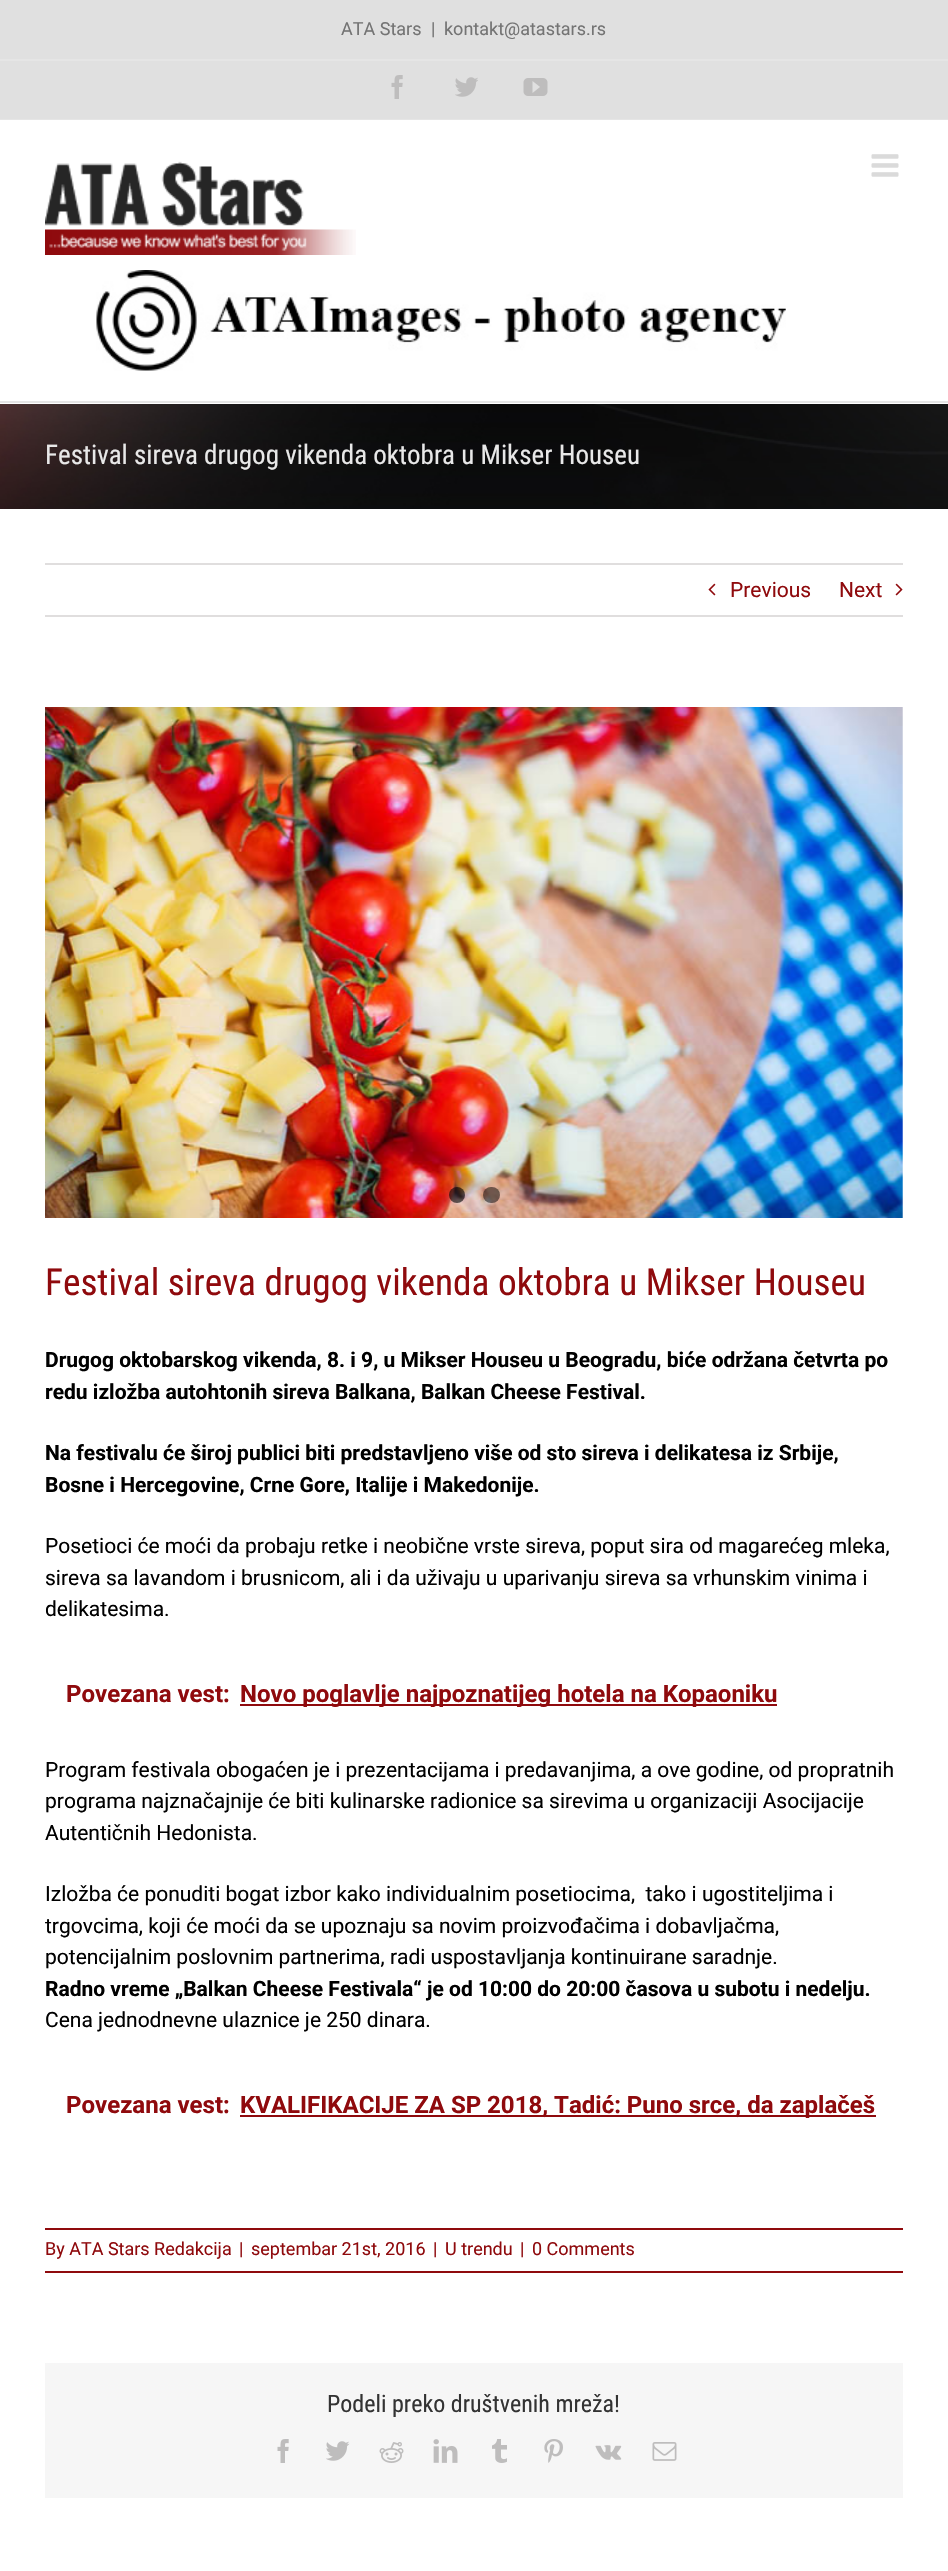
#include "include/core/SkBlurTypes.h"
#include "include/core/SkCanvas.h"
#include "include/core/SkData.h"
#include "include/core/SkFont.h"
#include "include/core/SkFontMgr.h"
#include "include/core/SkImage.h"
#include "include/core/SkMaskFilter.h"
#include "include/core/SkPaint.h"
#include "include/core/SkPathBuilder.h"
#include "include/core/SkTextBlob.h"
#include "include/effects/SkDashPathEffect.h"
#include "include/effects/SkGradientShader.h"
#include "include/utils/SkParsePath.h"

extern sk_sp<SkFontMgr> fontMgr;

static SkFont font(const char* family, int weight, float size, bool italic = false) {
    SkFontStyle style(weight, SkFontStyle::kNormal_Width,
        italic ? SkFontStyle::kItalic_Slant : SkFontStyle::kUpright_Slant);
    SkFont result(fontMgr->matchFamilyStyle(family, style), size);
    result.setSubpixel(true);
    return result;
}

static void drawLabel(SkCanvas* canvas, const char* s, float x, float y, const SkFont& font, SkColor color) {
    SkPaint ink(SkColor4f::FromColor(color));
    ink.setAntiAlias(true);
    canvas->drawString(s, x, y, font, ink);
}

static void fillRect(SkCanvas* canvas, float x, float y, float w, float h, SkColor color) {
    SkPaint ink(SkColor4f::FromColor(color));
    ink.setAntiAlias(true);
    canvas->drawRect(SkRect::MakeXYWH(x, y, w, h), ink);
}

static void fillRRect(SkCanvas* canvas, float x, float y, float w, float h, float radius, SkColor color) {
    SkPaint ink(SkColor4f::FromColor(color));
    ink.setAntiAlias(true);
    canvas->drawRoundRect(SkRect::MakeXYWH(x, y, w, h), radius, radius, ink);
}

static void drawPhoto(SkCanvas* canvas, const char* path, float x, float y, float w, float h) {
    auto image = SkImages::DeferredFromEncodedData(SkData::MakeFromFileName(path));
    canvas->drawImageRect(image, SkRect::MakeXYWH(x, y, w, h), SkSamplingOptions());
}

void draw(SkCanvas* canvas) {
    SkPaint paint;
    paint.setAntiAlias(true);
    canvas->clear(0xFFFFFFFF);
    fillRect(canvas, 0, 0, 948, 119, 0xFFE0E0E0);
    fillRect(canvas, 0, 119, 948, 1, 0xFFE5E5E5);
    fillRect(canvas, 0, 59, 948, 2, 0xFFE5E5E5);
    SkFont font1 = font("Roboto", 400, 18);
    drawLabel(canvas, "ATA Stars", 341, 35, font1, 0xFF747474);
    drawLabel(canvas, "|", 431, 35, font1, 0xFF747474);
    drawLabel(canvas, "kontakt@atastars.rs", 444, 35, font1, 0xFF747474);
    drawPhoto(canvas, "assets/img1.png", 391, 75, 12, 24);
    drawPhoto(canvas, "assets/img2.png", 455, 77, 23, 20);
    drawPhoto(canvas, "assets/img3.png", 523, 78, 25, 18);
    fillRect(canvas, 0, 401, 948, 2, 0xFFE5E5E5);
    drawPhoto(canvas, "assets/img4.png", 45, 161, 311, 94);
    drawPhoto(canvas, "assets/img5.png", 96, 270, 690, 101);
    drawPhoto(canvas, "assets/img6.png", 871, 154, 28, 23);
    drawPhoto(canvas, "assets/img7.png", 0, 404, 948, 105);
    SkFont font2 = font("Roboto Condensed", 400, 27);
    drawLabel(canvas, "Festival sireva drugog vikenda oktobra u Mikser Houseu", 45, 464, font2, 0xFFE8E8E8);
    fillRect(canvas, 45, 563, 858, 2, 0xFFE0DEDE);
    fillRect(canvas, 45, 615, 858, 2, 0xFFE0DEDE);
    drawPhoto(canvas, "assets/img8.png", 708, 583, 8, 13);
    SkFont font3 = font("Roboto", 400, 21);
    drawLabel(canvas, "Previous", 730, 597, font3, 0xFF8F0A0D);
    drawLabel(canvas, "Next", 839, 597, font3, 0xFF8F0A0D);
    drawPhoto(canvas, "assets/img9.png", 895, 583, 8, 13);
    drawPhoto(canvas, "assets/img10.png", 45, 707, 858, 511);
    paint.setColor(0x99000000);
    canvas->drawCircle(457, 1195, 8, paint);
    fillRRect(canvas, 483, 1187, 17, 16, 8, 0x80000000);
    SkFont font4 = font("Roboto Condensed", 400, 37.25f);
    drawLabel(canvas, "Festival sireva drugog vikenda oktobra u Mikser Houseu", 45, 1295, font4, 0xFF8F0A0D);
    SkFont font5 = font("Roboto", 700, 21);
    drawLabel(canvas, "Drugog oktobarskog vikenda, 8. i 9, u Mikser Houseu u Beogradu, biće održana četvrta po", 45, 1367, font5, 0xFF000000);
    drawLabel(canvas, "redu izložba autohtonih sireva Balkana, Balkan Cheese Festival.", 45, 1399, font5, 0xFF000000);
    drawLabel(canvas, "Na festivalu će široj publici biti predstavljeno više od sto sireva i delikatesa iz Srbije,", 45, 1460, font5, 0xFF000000);
    drawLabel(canvas, "Bosne i Hercegovine, Crne Gore, Italije i Makedonije.", 45, 1492, font5, 0xFF000000);
    drawLabel(canvas, "Posetioci će moći da probaju retke i neobične vrste sireva, poput sira od magarećeg mleka,", 45, 1553, font3, 0xFF000000);
    drawLabel(canvas, "sireva sa lavandom i brusnicom, ali i da uživaju u uparivanju sireva sa vrhunskim vinima i", 45, 1585, font3, 0xFF000000);
    drawLabel(canvas, "delikatesima.", 45, 1616, font3, 0xFF000000);
    SkFont font6 = font("Roboto", 700, 24);
    drawLabel(canvas, "Povezana vest:", 66, 1702, font6, 0xFF8F0A0D);
    fillRect(canvas, 240, 1704, 537, 2, 0xFF8F0A0D);
    drawLabel(canvas, "Novo poglavlje najpoznatijeg hotela na Kopaoniku", 240, 1702, font6, 0xFF8F0A0D);
    drawLabel(canvas, "Program festivala obogaćen je i prezentacijama i predavanjima, a ove godine, od propratnih", 45, 1777, font3, 0xFF000000);
    drawLabel(canvas, "programa najznačajnije će biti kulinarske radionice sa sirevima u organizaciji Asocijacije", 45, 1808, font3, 0xFF000000);
    drawLabel(canvas, "Autentičnih Hedonista.", 45, 1840, font3, 0xFF000000);
    drawLabel(canvas, "Izložba će ponuditi bogat izbor kako individualnim posetiocima,  tako i ugostiteljima i", 45, 1901, font3, 0xFF000000);
    drawLabel(canvas, "trgovcima, koji će moći da se upoznaju sa novim proizvođačima i dobavljačma,", 45, 1933, font3, 0xFF000000);
    drawLabel(canvas, "potencijalnim poslovnim partnerima, radi uspostavljanja kontinuirane saradnje.", 45, 1964, font3, 0xFF000000);
    drawLabel(canvas, "Radno vreme „Balkan Cheese Festivala“ je od 10:00 do 20:00 časova u subotu i nedelju.", 45, 1996, font5, 0xFF000000);
    drawLabel(canvas, "Cena jednodnevne ulaznice je 250 dinara.", 45, 2027, font3, 0xFF000000);
    drawLabel(canvas, "Povezana vest:", 66, 2113, font6, 0xFF8F0A0D);
    fillRect(canvas, 240, 2115, 636, 2, 0xFF8F0A0D);
    drawLabel(canvas, "KVALIFIKACIJE ZA SP 2018, Tadić: Puno srce, da zaplačeš", 240, 2113, font6, 0xFF8F0A0D);
    fillRect(canvas, 45, 2228, 858, 2, 0xFF8F0A0D);
    fillRect(canvas, 45, 2271, 858, 2, 0xFF8F0A0D);
    drawLabel(canvas, "By ATA Stars Redakcija", 45, 2255, font1, 0xFF8F0A0D);
    drawLabel(canvas, "|", 239, 2255, font1, 0xFF8F0A0D);
    drawLabel(canvas, "septembar 21st, 2016", 251, 2255, font1, 0xFF8F0A0D);
    drawLabel(canvas, "|", 433, 2255, font1, 0xFF8F0A0D);
    drawLabel(canvas, "U trendu", 445, 2255, font1, 0xFF8F0A0D);
    drawLabel(canvas, "|", 520, 2255, font1, 0xFF8F0A0D);
    drawLabel(canvas, "0 Comments", 532, 2255, font1, 0xFF8F0A0D);
    fillRect(canvas, 45, 2363, 858, 135, 0xFFF6F6F6);
    SkFont font7 = font("Roboto Condensed", 400, 24);
    drawLabel(canvas, "Podeli preko društvenih mreža!", 327, 2412, font7, 0xFF333333);
    drawPhoto(canvas, "assets/img11.png", 277, 2439, 12, 24);
    drawPhoto(canvas, "assets/img12.png", 326, 2441, 24, 20);
    drawPhoto(canvas, "assets/img13.png", 379, 2442, 25, 21);
    drawPhoto(canvas, "assets/img14.png", 433, 2439, 25, 24);
    drawPhoto(canvas, "assets/img15.png", 492, 2439, 15, 24);
    drawPhoto(canvas, "assets/img16.png", 544, 2439, 19, 24);
    drawPhoto(canvas, "assets/img17.png", 595, 2445, 27, 15);
    drawPhoto(canvas, "assets/img18.png", 652, 2442, 25, 19);
}
